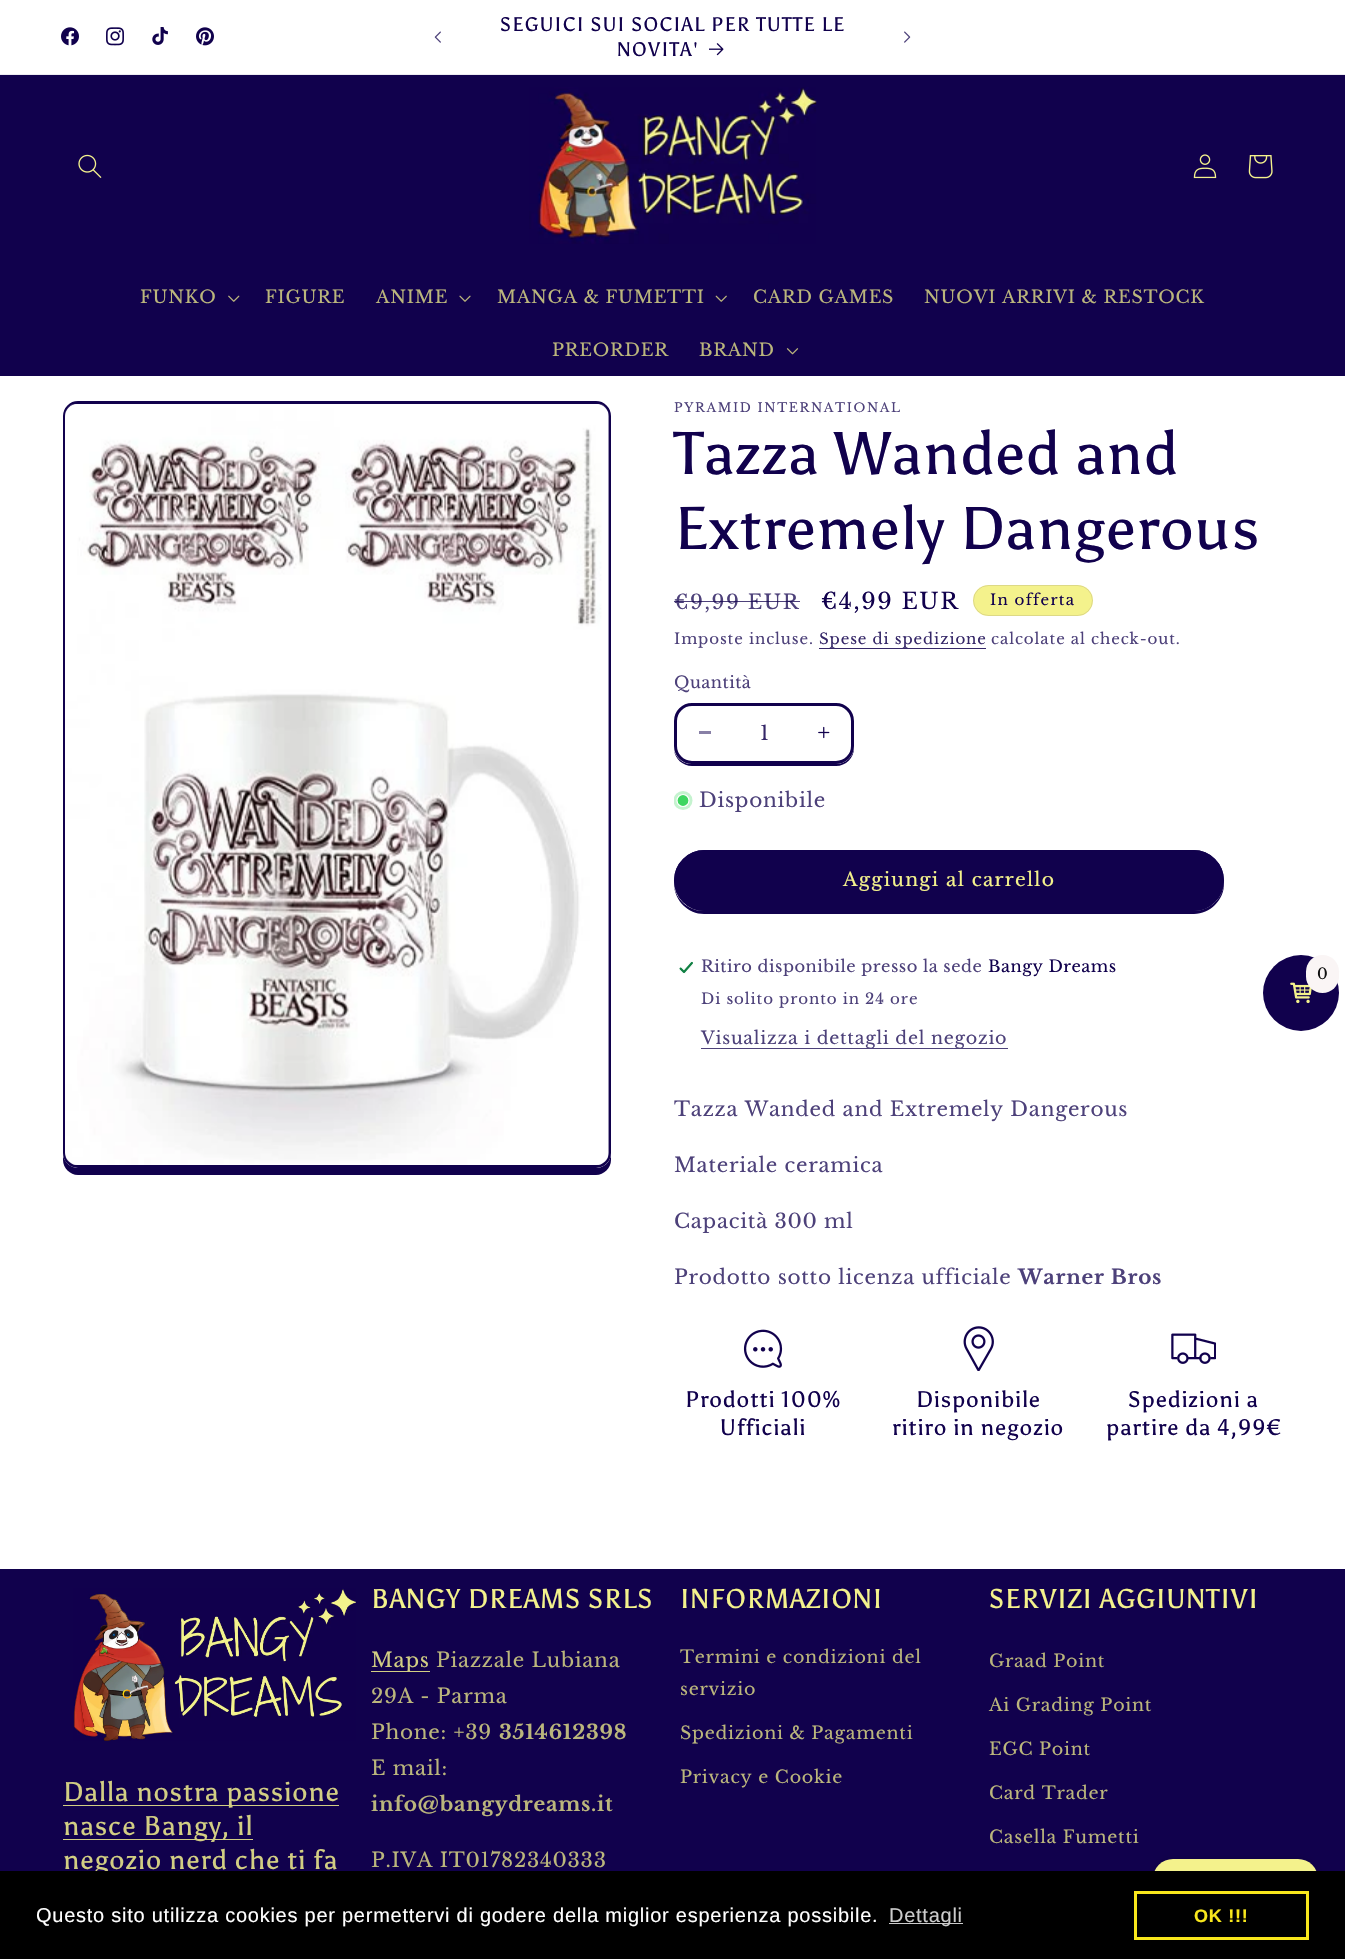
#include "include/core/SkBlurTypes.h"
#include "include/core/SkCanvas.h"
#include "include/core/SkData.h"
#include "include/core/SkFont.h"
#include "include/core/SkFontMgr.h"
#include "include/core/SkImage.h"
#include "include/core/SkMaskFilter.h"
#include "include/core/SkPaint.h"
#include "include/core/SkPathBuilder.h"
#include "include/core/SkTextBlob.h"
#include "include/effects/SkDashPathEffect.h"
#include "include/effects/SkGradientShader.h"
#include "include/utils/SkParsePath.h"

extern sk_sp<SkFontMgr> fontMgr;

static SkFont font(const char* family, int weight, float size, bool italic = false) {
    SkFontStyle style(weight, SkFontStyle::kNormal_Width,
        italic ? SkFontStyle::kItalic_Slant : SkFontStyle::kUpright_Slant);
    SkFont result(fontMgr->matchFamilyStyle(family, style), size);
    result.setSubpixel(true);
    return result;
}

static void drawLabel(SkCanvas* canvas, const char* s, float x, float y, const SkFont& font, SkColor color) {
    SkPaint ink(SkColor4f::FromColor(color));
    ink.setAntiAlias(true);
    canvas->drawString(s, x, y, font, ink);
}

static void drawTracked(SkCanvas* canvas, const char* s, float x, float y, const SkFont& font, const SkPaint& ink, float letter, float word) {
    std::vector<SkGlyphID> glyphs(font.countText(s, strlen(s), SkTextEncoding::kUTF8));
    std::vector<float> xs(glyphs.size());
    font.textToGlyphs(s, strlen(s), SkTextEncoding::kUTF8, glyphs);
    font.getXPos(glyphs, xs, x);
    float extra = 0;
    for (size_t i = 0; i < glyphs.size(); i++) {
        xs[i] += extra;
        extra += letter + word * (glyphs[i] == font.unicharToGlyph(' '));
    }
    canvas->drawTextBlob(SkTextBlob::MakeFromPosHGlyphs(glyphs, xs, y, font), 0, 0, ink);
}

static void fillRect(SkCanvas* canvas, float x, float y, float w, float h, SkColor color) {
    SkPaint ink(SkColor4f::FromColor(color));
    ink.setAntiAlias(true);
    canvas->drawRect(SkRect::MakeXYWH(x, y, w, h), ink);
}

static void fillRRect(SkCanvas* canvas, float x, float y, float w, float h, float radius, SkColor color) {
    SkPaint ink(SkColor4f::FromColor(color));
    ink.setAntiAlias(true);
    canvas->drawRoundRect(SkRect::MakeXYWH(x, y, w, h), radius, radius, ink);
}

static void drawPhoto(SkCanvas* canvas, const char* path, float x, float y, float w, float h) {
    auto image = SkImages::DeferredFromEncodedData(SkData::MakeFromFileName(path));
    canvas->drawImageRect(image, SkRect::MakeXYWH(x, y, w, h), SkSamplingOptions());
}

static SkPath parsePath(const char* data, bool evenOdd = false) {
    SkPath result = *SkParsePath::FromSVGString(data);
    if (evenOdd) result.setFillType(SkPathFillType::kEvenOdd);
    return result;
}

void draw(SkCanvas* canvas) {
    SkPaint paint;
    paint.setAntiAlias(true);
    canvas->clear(0xFFFFFFFF);
    fillRect(canvas, 0, 74, 1345, 1, 0xFFECEBF1);
    drawPhoto(canvas, "assets/img1.png", 61, 27, 18, 19);
    drawPhoto(canvas, "assets/img2.png", 106, 27, 18, 19);
    drawPhoto(canvas, "assets/img3.png", 152, 27, 16, 18);
    drawPhoto(canvas, "assets/img4.png", 196, 27, 18, 19);
    drawPhoto(canvas, "assets/img5.png", 434, 31, 7, 12);
    SkFont font1 = font("Asul", 400, 19.5f);
    paint.setColor(0xFF11014D);
    drawTracked(canvas, "SEGUICI SUI SOCIAL PER TUTTE LE", 500, 31, font1, paint, 1.25f, 0);
    drawTracked(canvas, "NOVITA'", 617, 56, font1, paint, 1.25f, 0);
    drawPhoto(canvas, "assets/img6.png", 709, 43, 15, 13);
    drawPhoto(canvas, "assets/img7.png", 904, 31, 7, 12);
    fillRect(canvas, 0, 75, 1345, 301, 0xFF11014D);
    drawPhoto(canvas, "assets/img8.png", 78, 154, 24, 24);
    drawPhoto(canvas, "assets/img9.png", 529, 87, 288, 157);
    drawPhoto(canvas, "assets/img10.png", 1193, 154, 24, 25);
    drawPhoto(canvas, "assets/img11.png", 1248, 155, 25, 24);
    SkFont font2 = font("Libre Baskerville", 400, 17.5f);
    paint.setColor(0xFFBBB67C);
    drawTracked(canvas, "FUNKO", 140, 303, font2, paint, 0.75f, 0);
    drawPhoto(canvas, "assets/img12.png", 228, 295, 12, 7);
    drawTracked(canvas, "FIGURE", 265, 303, font2, paint, 0.75f, 0);
    drawTracked(canvas, "ANIME", 376, 303, font2, paint, 0.75f, 0);
    drawPhoto(canvas, "assets/img13.png", 459, 295, 12, 7);
    drawTracked(canvas, "MANGA & FUMETTI", 497, 303, font2, paint, 0.75f, 0);
    drawPhoto(canvas, "assets/img14.png", 715, 295, 12, 7);
    drawTracked(canvas, "CARD GAMES", 753, 303, font2, paint, 0.75f, 0);
    drawTracked(canvas, "NUOVI ARRIVI & RESTOCK", 924, 303, font2, paint, 0.75f, 0);
    drawTracked(canvas, "PREORDER", 552, 356, font2, paint, 0.75f, 0);
    drawTracked(canvas, "BRAND", 699, 356, font2, paint, 0.75f, 0);
    drawPhoto(canvas, "assets/img15.png", 786, 348, 13, 7);
    paint.setColor(0xFF11014D);
    canvas->drawPath(parsePath("M63 1156V1160C63 1168 70 1175 78 1175H596C604 1175 611 1168 611 1160V1155C610 1162 604 1168 596 1168H78C71 1168 65 1163 63 1156Z"), paint);
    paint.setStroke(true);
    paint.setStrokeWidth(3);
    canvas->drawRoundRect(SkRect::MakeXYWH(64.5f, 402.5f, 545, 764), 13.5f, 13.5f, paint);
    drawPhoto(canvas, "assets/img16.png", 65, 404, 544, 761);
    SkFont font3 = font("Libre Baskerville", 400, 12.5f);
    paint.setStroke(false);
    paint.setColor(0xFF4D417A);
    drawTracked(canvas, "PYRAMID INTERNATIONAL", 674, 412, font3, paint, 1.6f, 0);
    SkFont font4 = font("Asul", 400, 60);
    paint.setColor(0xFF11014D);
    drawTracked(canvas, "Tazza Wanded and", 674, 474, font4, paint, 0.9f, 0);
    drawTracked(canvas, "Extremely Dangerous", 674, 549, font4, paint, 0.9f, 0);
    SkFont font5 = font("Libre Baskerville", 400, 20);
    paint.setColor(0xFF4D417A);
    drawTracked(canvas, "€9,99 EUR", 674, 609, font5, paint, 1.6f, 0);
    fillRect(canvas, 674, 601, 126, 1, 0xBF11014D);
    SkFont font6 = font("Libre Baskerville", 400, 22.5f);
    paint.setColor(0xFF11014D);
    drawTracked(canvas, "€4,99 EUR", 821, 609, font6, paint, 1.6f, 0);
    fillRRect(canvas, 973, 585, 120, 31, 15.5f, 0xFFF4F28C);
    paint.setStroke(true);
    paint.setStrokeWidth(1);
    paint.setColor(0x1A11014D);
    canvas->drawRoundRect(SkRect::MakeXYWH(973.5f, 585.5f, 119, 30), 15, 15, paint);
    SkFont font7 = font("Libre Baskerville", 400, 15);
    paint.setStroke(false);
    paint.setColor(0xFF11014D);
    drawTracked(canvas, "In offerta", 990, 605, font7, paint, 1.25f, 0);
    paint.setColor(0xFF4D417A);
    drawTracked(canvas, "Imposte incluse.", 674, 644, font7, paint, 0.9f, 0);
    paint.setColor(0xFF352768);
    drawTracked(canvas, "Spese di spedizione", 819, 644, font7, paint, 0.9f, 0);
    fillRect(canvas, 819, 648, 167, 1, 0xFF352768);
    paint.setColor(0xFF4D417A);
    drawTracked(canvas, "calcolate al check-out.", 991, 644, font7, paint, 0.9f, 0);
    SkFont font8 = font("Libre Baskerville", 400, 16.25f);
    drawTracked(canvas, "Quantità", 674, 688, font8, paint, 0.5f, 0);
    paint.setColor(0xFF11014D);
    canvas->drawPath(parsePath("M674 750C675 759 683 766 692 766H836C846 766 854 758 854 748V720V746C854 756 846 764 836 764H691C683 764 676 758 674 750Z"), paint);
    fillRRect(canvas, 674, 703, 180, 61, 18, 0xFFFFFFFF);
    fillRect(canvas, 699, 731, 12, 3, 0xFF8880A6);
    drawPhoto(canvas, "assets/img17.png", 818, 726, 12, 13);
    paint.setStroke(true);
    paint.setStrokeWidth(3);
    canvas->drawRoundRect(SkRect::MakeXYWH(675.5f, 704.5f, 177, 58), 16.5f, 16.5f, paint);
    drawLabel(canvas, "1", 760, 740, font5, 0xFF352768);
    canvas->save();
    canvas->clipRect(SkRect::MakeXYWH(674, 791, 19, 19));
    paint.setStroke(false);
    paint.setColor(0xFFC5F3CF);
    canvas->drawCircle(683, 800.5f, 9.5f, paint);
    canvas->restore();
    paint.setColor(0xFF3ED660);
    canvas->drawCircle(683, 800.5f, 6, paint);
    paint.setStroke(true);
    paint.setStrokeWidth(1.2f);
    paint.setColor(0xFFFFFFFF);
    canvas->drawCircle(683, 800.5f, 6, paint);
    paint.setStroke(false);
    paint.setColor(0xFF4D417A);
    drawTracked(canvas, "Disponibile", 699, 807, font5, paint, 0.75f, 0);
    paint.setColor(0xFF11014D);
    canvas->drawPath(parsePath("M674 885C675 901 688 914 704 914H1194C1210 914 1224 900 1224 884V879V881C1224 898 1210 911 1193 911H704C689 911 676 900 674 885Z"), paint);
    fillRRect(canvas, 674, 850, 550, 61, 30.5f, 0xFF11014D);
    paint.setStroke(true);
    paint.setStrokeWidth(3);
    canvas->drawRoundRect(SkRect::MakeXYWH(675.5f, 851.5f, 547, 58), 29, 29, paint);
    SkFont font9 = font("Libre Baskerville", 400, 18.75f);
    paint.setStroke(false);
    paint.setColor(0xFFF4F28C);
    drawTracked(canvas, "Aggiungi al carrello", 843, 886, font9, paint, 1.25f, 0);
    drawPhoto(canvas, "assets/img18.png", 679, 961, 14, 13);
    paint.setColor(0xFF4D417A);
    drawTracked(canvas, "Ritiro disponibile presso la sede", 701, 972, font8, paint, 0.5f, 0);
    paint.setColor(0xFF11014D);
    drawTracked(canvas, "Bangy Dreams", 988, 972, font8, paint, 0.5f, 0);
    paint.setColor(0xFF4D417A);
    drawTracked(canvas, "Di solito pronto in 24 ore", 701, 1004, font7, paint, 0.9f, 0);
    fillRect(canvas, 701, 1048, 307, 1, 0xFF4D417A);
    drawTracked(canvas, "Visualizza i dettagli del negozio", 701, 1044, font2, paint, 0.75f, 0);
    drawTracked(canvas, "Tazza Wanded and Extremely Dangerous", 674, 1116, font5, paint, 0.75f, 0);
    drawTracked(canvas, "Materiale ceramica", 674, 1172, font5, paint, 0.75f, 0);
    drawTracked(canvas, "Capacità 300 ml", 674, 1228, font5, paint, 0.75f, 0);
    drawTracked(canvas, "Prodotto sotto licenza ufficiale", 674, 1284, font5, paint, 0.75f, 0);
    SkFont font10 = font("Libre Baskerville", 700, 20);
    drawTracked(canvas, "Warner Bros", 1018, 1284, font10, paint, 0.75f, 0);
    drawPhoto(canvas, "assets/img19.png", 743, 1329, 40, 39);
    SkFont font11 = font("Asul", 400, 22.5f);
    paint.setColor(0xFF11014D);
    drawTracked(canvas, "Prodotti 100%", 685, 1407, font11, paint, 0.9f, 0);
    drawTracked(canvas, "Ufficiali", 720, 1435, font11, paint, 0.9f, 0);
    drawPhoto(canvas, "assets/img20.png", 963, 1326, 31, 45);
    drawTracked(canvas, "Disponibile", 916, 1407, font11, paint, 0.9f, 0);
    drawTracked(canvas, "ritiro in negozio", 892, 1435, font11, paint, 0.9f, 0);
    drawPhoto(canvas, "assets/img21.png", 1171, 1333, 45, 31);
    drawTracked(canvas, "Spedizioni a", 1128, 1407, font11, paint, 0.9f, 0);
    drawTracked(canvas, "partire da 4,99€", 1106, 1435, font11, paint, 0.9f, 0);
    canvas->drawCircle(1301, 993, 38, paint);
    drawPhoto(canvas, "assets/img22.png", 1290, 982, 22, 22);
    fillRRect(canvas, 1306, 955, 33, 38, 16.5f, 0xFFFAF5F5);
    paint.setColor(0xFF111111);
    drawTracked(canvas, "0", 1317, 979, font7, paint, 0.75f, 0);
    fillRect(canvas, 0, 1569, 1345, 302, 0xFF11014D);
    drawPhoto(canvas, "assets/img23.png", 73, 1588, 284, 153);
    fillRect(canvas, 63, 1805, 276, 1, 0xFFD2CE83);
    SkFont font12 = font("Asul", 400, 27);
    paint.setColor(0xFFD2CE83);
    drawTracked(canvas, "Dalla nostra passione", 63, 1801, font12, paint, 0.9f, 0);
    fillRect(canvas, 63, 1839, 190, 1, 0xFFD2CE83);
    drawTracked(canvas, "nasce Bangy, il", 63, 1835, font12, paint, 0.9f, 0);
    drawTracked(canvas, "negozio nerd che ti fa", 63, 1869, font12, paint, 0.9f, 0);
    paint.setColor(0xFFF4F28C);
    drawTracked(canvas, "BANGY DREAMS SRLS", 371, 1608, font12, paint, 0.9f, 0);
    fillRect(canvas, 371, 1671, 59, 1, 0xFFD2CE83);
    paint.setColor(0xFFD2CE83);
    drawTracked(canvas, "Maps", 371, 1667, font5, paint, 0.75f, 0);
    paint.setColor(0xFFBBB67C);
    drawTracked(canvas, "Piazzale Lubiana", 436, 1667, font5, paint, 0.75f, 0);
    drawTracked(canvas, "29A - Parma", 371, 1703, font5, paint, 0.75f, 0);
    drawTracked(canvas, "Phone: +39", 371, 1739, font5, paint, 0.75f, 0);
    drawTracked(canvas, "3514612398", 499, 1739, font10, paint, 0.75f, 0);
    drawTracked(canvas, "E mail:", 371, 1775, font5, paint, 0.75f, 0);
    drawTracked(canvas, "info@bangydreams.it", 371, 1811, font10, paint, 0.75f, 0);
    drawTracked(canvas, "P.IVA IT01782340333", 371, 1867, font5, paint, 0.75f, 0);
    paint.setColor(0xFFF4F28C);
    drawTracked(canvas, "INFORMAZIONI", 680, 1608, font12, paint, 0.9f, 0);
    paint.setColor(0xFFBBB67C);
    drawTracked(canvas, "Termini e condizioni del", 680, 1663, font2, paint, 0.75f, 0);
    drawTracked(canvas, "servizio", 680, 1695, font2, paint, 0.75f, 0);
    drawTracked(canvas, "Spedizioni & Pagamenti", 680, 1739, font2, paint, 0.75f, 0);
    drawTracked(canvas, "Privacy e Cookie", 680, 1783, font2, paint, 0.75f, 0);
    paint.setColor(0xFFF4F28C);
    drawTracked(canvas, "SERVIZI AGGIUNTIVI", 989, 1608, font12, paint, 0.9f, 0);
    paint.setColor(0xFFBBB67C);
    drawTracked(canvas, "Graad Point", 989, 1667, font2, paint, 0.75f, 0);
    drawTracked(canvas, "Ai Grading Point", 989, 1711, font2, paint, 0.75f, 0);
    drawTracked(canvas, "EGC Point", 989, 1755, font2, paint, 0.75f, 0);
    drawTracked(canvas, "Card Trader", 989, 1799, font2, paint, 0.75f, 0);
    drawTracked(canvas, "Casella Fumetti", 989, 1843, font2, paint, 0.75f, 0);
    paint.setColor(0x26000000);
    paint.setMaskFilter(SkMaskFilter::MakeBlur(kNormal_SkBlurStyle, 3));
    canvas->drawRoundRect(SkRect::MakeXYWH(1153, 1859, 165, 75), 20, 20, paint);
    paint.setMaskFilter(nullptr);
    fillRRect(canvas, 1153, 1859, 165, 75, 20, 0xFFF4F28C);
    fillRect(canvas, 0, 1871, 1345, 88, 0xFF000000);
    SkFont font13 = font("Liberation Sans", 400, 20);
    paint.setColor(0xFFFFFFFF);
    drawTracked(canvas, "Questo sito utilizza cookies per permettervi di godere della miglior esperienza possibile.", 36, 1922, font13, paint, 0.75f, 0);
    fillRect(canvas, 889, 1923, 74, 1, 0xFFCCCCCC);
    paint.setColor(0xFFCCCCCC);
    drawTracked(canvas, "Dettagli", 889, 1922, font13, paint, 0.75f, 0);
    paint.setStroke(true);
    paint.setColor(0xFFF8E71C);
    canvas->drawRect(SkRect::MakeXYWH(1135.5f, 1892.5f, 172, 46), paint);
    SkFont font14 = font("Liberation Sans", 700, 18);
    paint.setStroke(false);
    drawTracked(canvas, "OK !!!", 1194, 1922, font14, paint, 0.75f, 0);
}
